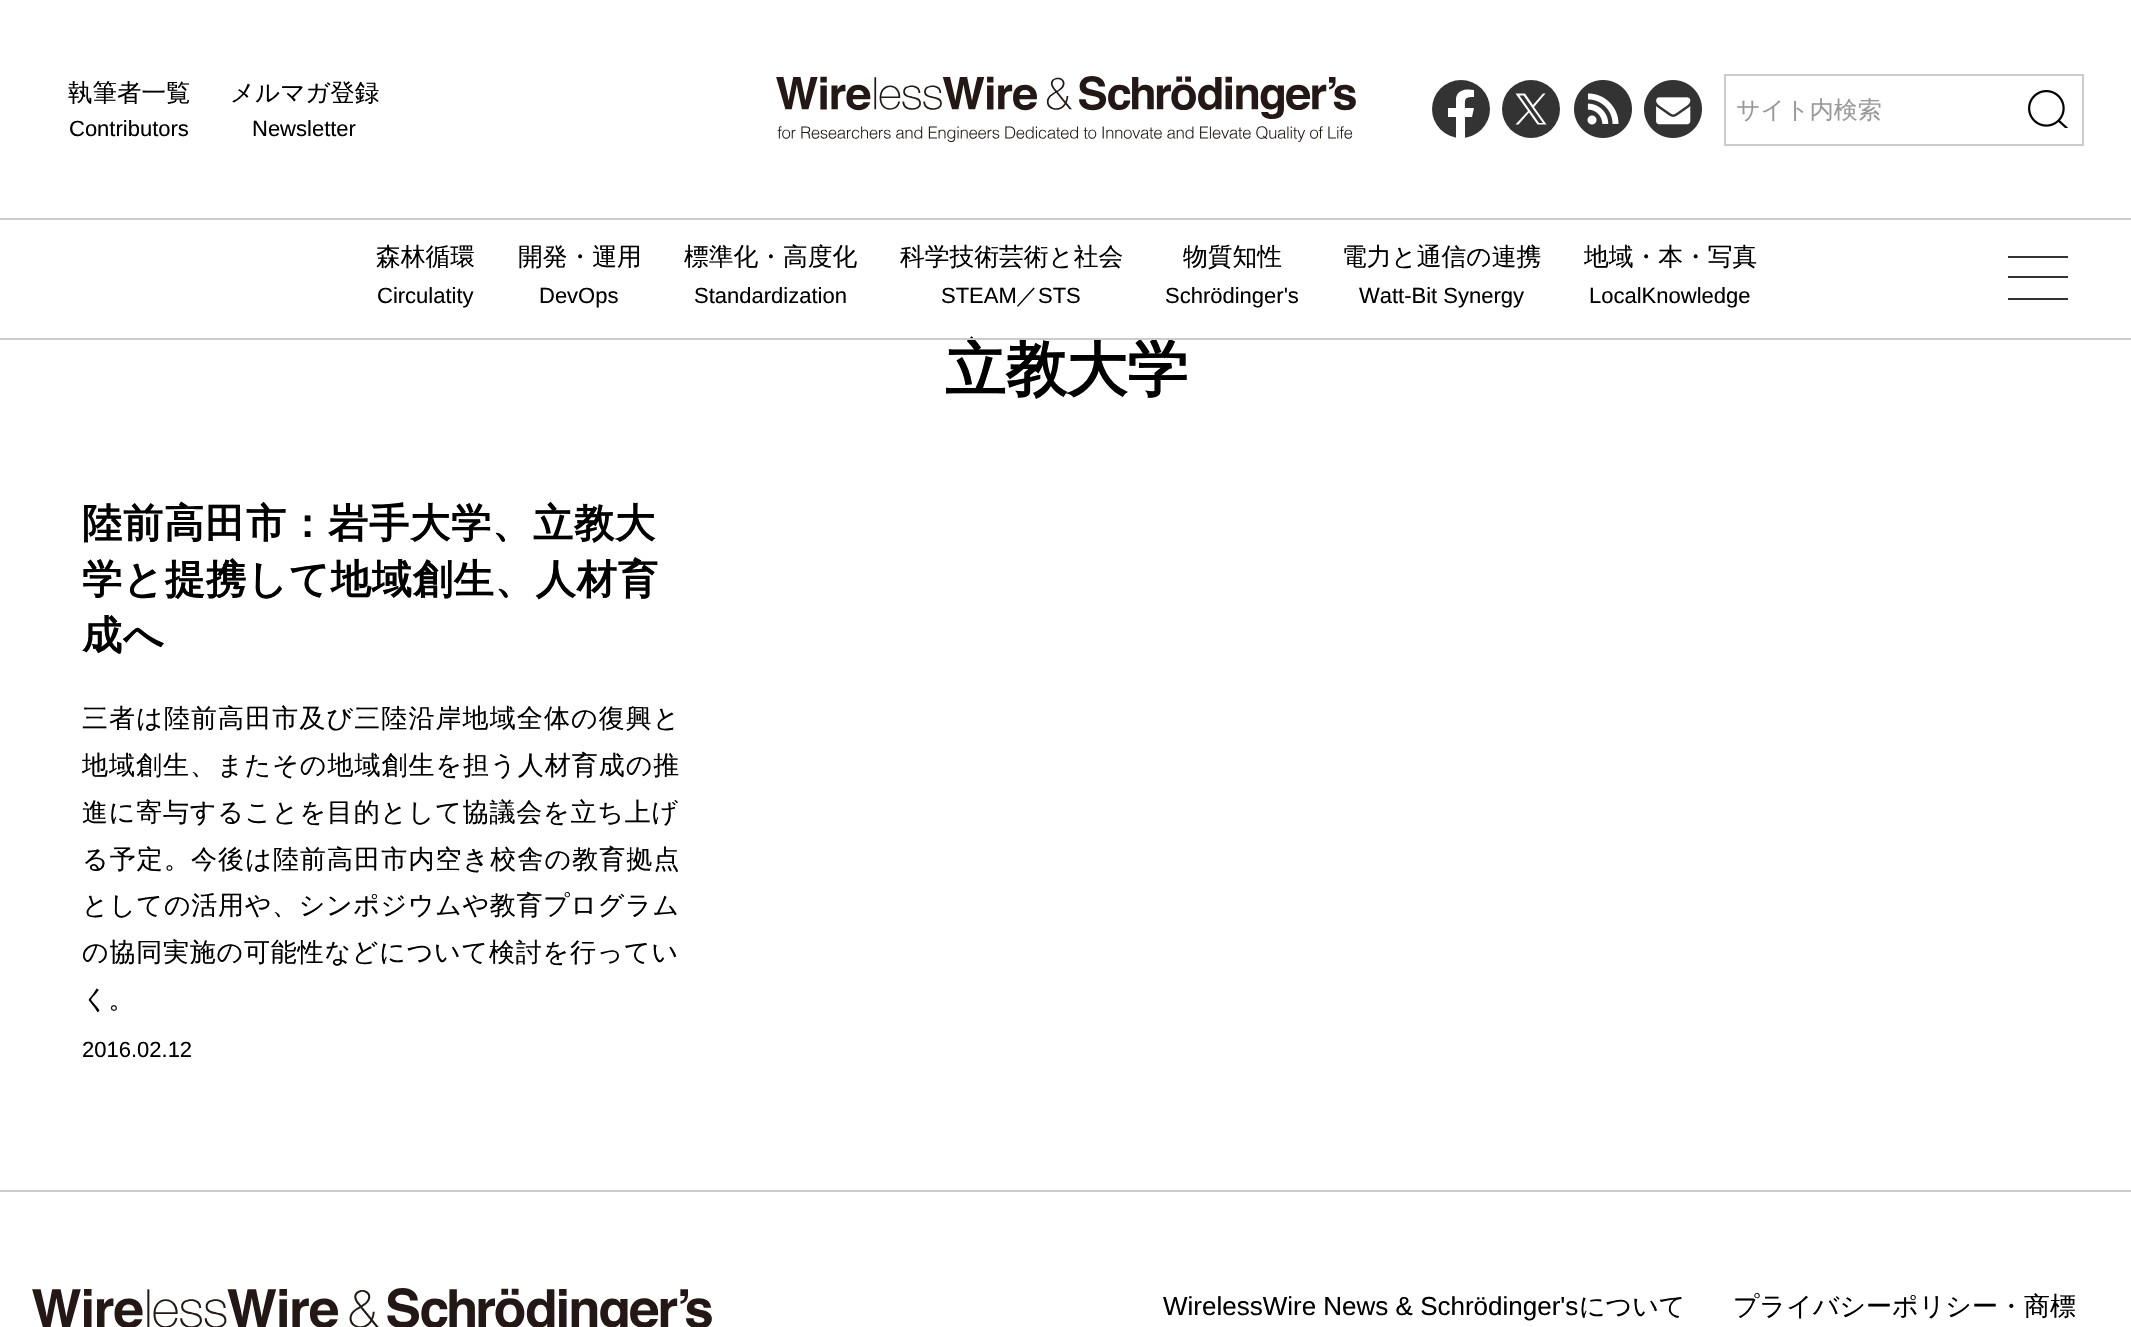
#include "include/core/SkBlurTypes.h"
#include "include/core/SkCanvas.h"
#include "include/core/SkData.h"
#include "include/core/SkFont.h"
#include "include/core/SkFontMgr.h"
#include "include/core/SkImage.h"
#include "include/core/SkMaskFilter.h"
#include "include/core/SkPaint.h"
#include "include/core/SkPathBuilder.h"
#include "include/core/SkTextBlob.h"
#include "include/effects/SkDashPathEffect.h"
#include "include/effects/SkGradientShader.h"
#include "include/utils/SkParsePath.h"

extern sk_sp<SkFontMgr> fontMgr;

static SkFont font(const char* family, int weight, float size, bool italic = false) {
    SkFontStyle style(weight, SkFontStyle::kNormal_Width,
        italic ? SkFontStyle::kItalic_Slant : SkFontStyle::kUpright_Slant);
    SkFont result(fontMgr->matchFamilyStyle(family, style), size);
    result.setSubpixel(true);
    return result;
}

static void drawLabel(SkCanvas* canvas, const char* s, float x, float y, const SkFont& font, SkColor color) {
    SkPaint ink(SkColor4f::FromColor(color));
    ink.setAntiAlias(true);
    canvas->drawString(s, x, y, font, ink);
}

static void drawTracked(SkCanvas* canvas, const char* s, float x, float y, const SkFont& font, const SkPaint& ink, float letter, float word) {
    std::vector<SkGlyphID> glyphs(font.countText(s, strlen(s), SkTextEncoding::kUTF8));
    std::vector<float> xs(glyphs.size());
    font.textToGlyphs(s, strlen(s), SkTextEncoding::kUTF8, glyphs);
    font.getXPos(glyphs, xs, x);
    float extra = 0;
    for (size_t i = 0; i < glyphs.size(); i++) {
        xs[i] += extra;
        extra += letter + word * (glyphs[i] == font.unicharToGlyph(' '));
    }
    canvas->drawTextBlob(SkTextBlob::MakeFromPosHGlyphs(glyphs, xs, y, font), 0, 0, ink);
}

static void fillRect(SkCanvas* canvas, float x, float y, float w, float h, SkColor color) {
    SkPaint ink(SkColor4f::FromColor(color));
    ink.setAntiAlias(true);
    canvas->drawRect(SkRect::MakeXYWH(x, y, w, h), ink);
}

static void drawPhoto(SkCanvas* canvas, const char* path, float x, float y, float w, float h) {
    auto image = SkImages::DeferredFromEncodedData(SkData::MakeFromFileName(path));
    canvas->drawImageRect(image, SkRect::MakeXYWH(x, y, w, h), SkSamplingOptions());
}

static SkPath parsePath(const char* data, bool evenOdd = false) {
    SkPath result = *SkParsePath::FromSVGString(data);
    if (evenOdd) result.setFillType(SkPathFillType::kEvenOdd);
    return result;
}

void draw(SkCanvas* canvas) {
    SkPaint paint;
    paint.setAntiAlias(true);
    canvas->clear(0xFFFFFFFF);
    fillRect(canvas, 0, 218, 2131, 2, 0xFFCCCCCC);
    SkFont font1 = font("WenQuanYi Zen Hei", 500, 24.5f);
    drawLabel(canvas, "執筆者一覧", 68, 101, font1, 0xFF000000);
    SkFont font2 = font("Liberation Sans", 400, 22);
    drawLabel(canvas, "Contributors", 69, 136, font2, 0xFF000000);
    drawLabel(canvas, "メルマガ登録", 230, 101, font1, 0xFF000000);
    drawLabel(canvas, "Newsletter", 252, 136, font2, 0xFF000000);
    drawPhoto(canvas, "assets/img1.png", 776, 76, 580, 66);
    paint.setColor(0xFF333333);
    canvas->drawCircle(1461, 109, 29, paint);
    paint.setColor(0xFFFFFFFF);
    canvas->drawPath(parsePath("M1472 117L1474 108H1465C1465 99 1464 97 1474 97V90C1467 89 1458 89 1456 98V108H1448V117H1456V138C1459 138 1462 138 1465 138V117Z"), paint);
    paint.setColor(0xFF333333);
    canvas->drawCircle(1531, 109, 29, paint);
    paint.setColor(0xFFFFFFFF);
    canvas->drawPath(parsePath("M1534 107L1545.5 93.5H1543L1533 105L1525 93.5H1515.5L1528 111L1515.5 124.5H1518.5L1529 112.5L1537.5 124.5H1546.5M1519.5 95.5H1523.5L1543 123H1539"), paint);
    drawPhoto(canvas, "assets/img2.png", 1574, 80, 58, 58);
    drawPhoto(canvas, "assets/img3.png", 1644, 80, 58, 58);
    paint.setStroke(true);
    paint.setStrokeWidth(2);
    paint.setColor(0xFFCCCCCC);
    canvas->drawRect(SkRect::MakeXYWH(1725, 75, 358, 70), paint);
    SkFont font3 = font("WenQuanYi Zen Hei", 500, 24);
    drawLabel(canvas, "サイト内検索", 1736, 118, font3, 0xFF999999);
    drawPhoto(canvas, "assets/img4.png", 2028, 90, 40, 38);
    SkFont font4 = font("WenQuanYi Zen Hei", 700, 60.75f);
    drawLabel(canvas, "立教大学", 945, 390, font4, 0xFF000000);
    fillRect(canvas, 0, 338, 2131, 2, 0xFFCCCCCC);
    SkFont font5 = font("WenQuanYi Zen Hei", 500, 24.75f);
    drawLabel(canvas, "森林循環", 376, 265, font5, 0xFF000000);
    drawLabel(canvas, "Circulatity", 377, 303, font2, 0xFF000000);
    drawLabel(canvas, "開発・運用", 518, 265, font5, 0xFF000000);
    drawLabel(canvas, "DevOps", 539, 303, font2, 0xFF000000);
    drawLabel(canvas, "標準化・高度化", 684, 265, font5, 0xFF000000);
    drawLabel(canvas, "Standardization", 694, 303, font2, 0xFF000000);
    drawLabel(canvas, "科学技術芸術と社会", 900, 265, font5, 0xFF000000);
    drawLabel(canvas, "STEAM", 941, 303, font2, 0xFF000000);
    SkFont font6 = font("WenQuanYi Zen Hei", 500, 22);
    drawLabel(canvas, "／", 1016, 303, font6, 0xFF000000);
    drawLabel(canvas, "STS", 1038, 303, font2, 0xFF000000);
    drawLabel(canvas, "物質知性", 1183, 265, font5, 0xFF000000);
    drawLabel(canvas, "Schrödinger's", 1165, 303, font2, 0xFF000000);
    drawLabel(canvas, "電力と通信の連携", 1342, 265, font5, 0xFF000000);
    drawLabel(canvas, "Watt-Bit Synergy", 1359, 303, font2, 0xFF000000);
    drawLabel(canvas, "地域・本・写真", 1584, 265, font5, 0xFF000000);
    drawLabel(canvas, "LocalKnowledge", 1589, 303, font2, 0xFF000000);
    fillRect(canvas, 2008, 256, 60, 2, 0xFF333333);
    fillRect(canvas, 2008, 276, 60, 2, 0xFF333333);
    fillRect(canvas, 2008, 298, 60, 2, 0xFF333333);
    SkFont font7 = font("WenQuanYi Zen Hei", 700, 40);
    paint.setStroke(false);
    paint.setColor(0xFF000000);
    drawTracked(canvas, "陸前高田市：岩手大学、立教大", 82, 537, font7, paint, 1, 0);
    drawTracked(canvas, "学と提携して地域創生、人材育", 82, 593, font7, paint, 1, 0);
    drawTracked(canvas, "成へ", 82, 649, font7, paint, 1, 0);
    SkFont font8 = font("WenQuanYi Zen Hei", 500, 26);
    drawTracked(canvas, "三者は陸前高田市及び三陸沿岸地域全体の復興と", 82, 727, font8, paint, 1.1f, 0);
    drawTracked(canvas, "地域創生、またその地域創生を担う人材育成の推", 82, 774, font8, paint, 1, 0);
    drawTracked(canvas, "進に寄与することを目的として協議会を立ち上げ", 82, 821, font8, paint, 0.8f, 0);
    drawTracked(canvas, "る予定。今後は陸前高田市内空き校舎の教育拠点", 82, 868, font8, paint, 1.1f, 0);
    drawTracked(canvas, "としての活用や、シンポジウムや教育プログラム", 82, 914, font8, paint, 0.7f, 0);
    drawTracked(canvas, "の協同実施の可能性などについて検討を行ってい", 82, 961, font8, paint, 0.8f, 0);
    drawLabel(canvas, "く。", 82, 1008, font8, 0xFF000000);
    drawLabel(canvas, "2016.02.12", 82, 1057, font2, 0xFF000000);
    fillRect(canvas, 0, 1190, 2131, 2, 0xFFCCCCCC);
    drawPhoto(canvas, "assets/img5.png", 32, 1288, 680, 39);
    SkFont font9 = font("Liberation Sans", 400, 26);
    drawLabel(canvas, "WirelessWire News & Schrödinger's", 1163, 1315, font9, 0xFF000000);
    drawLabel(canvas, "について", 1579, 1315, font8, 0xFF000000);
    drawLabel(canvas, "プライバシーポリシー・商標", 1733, 1315, font8, 0xFF000000);
}
